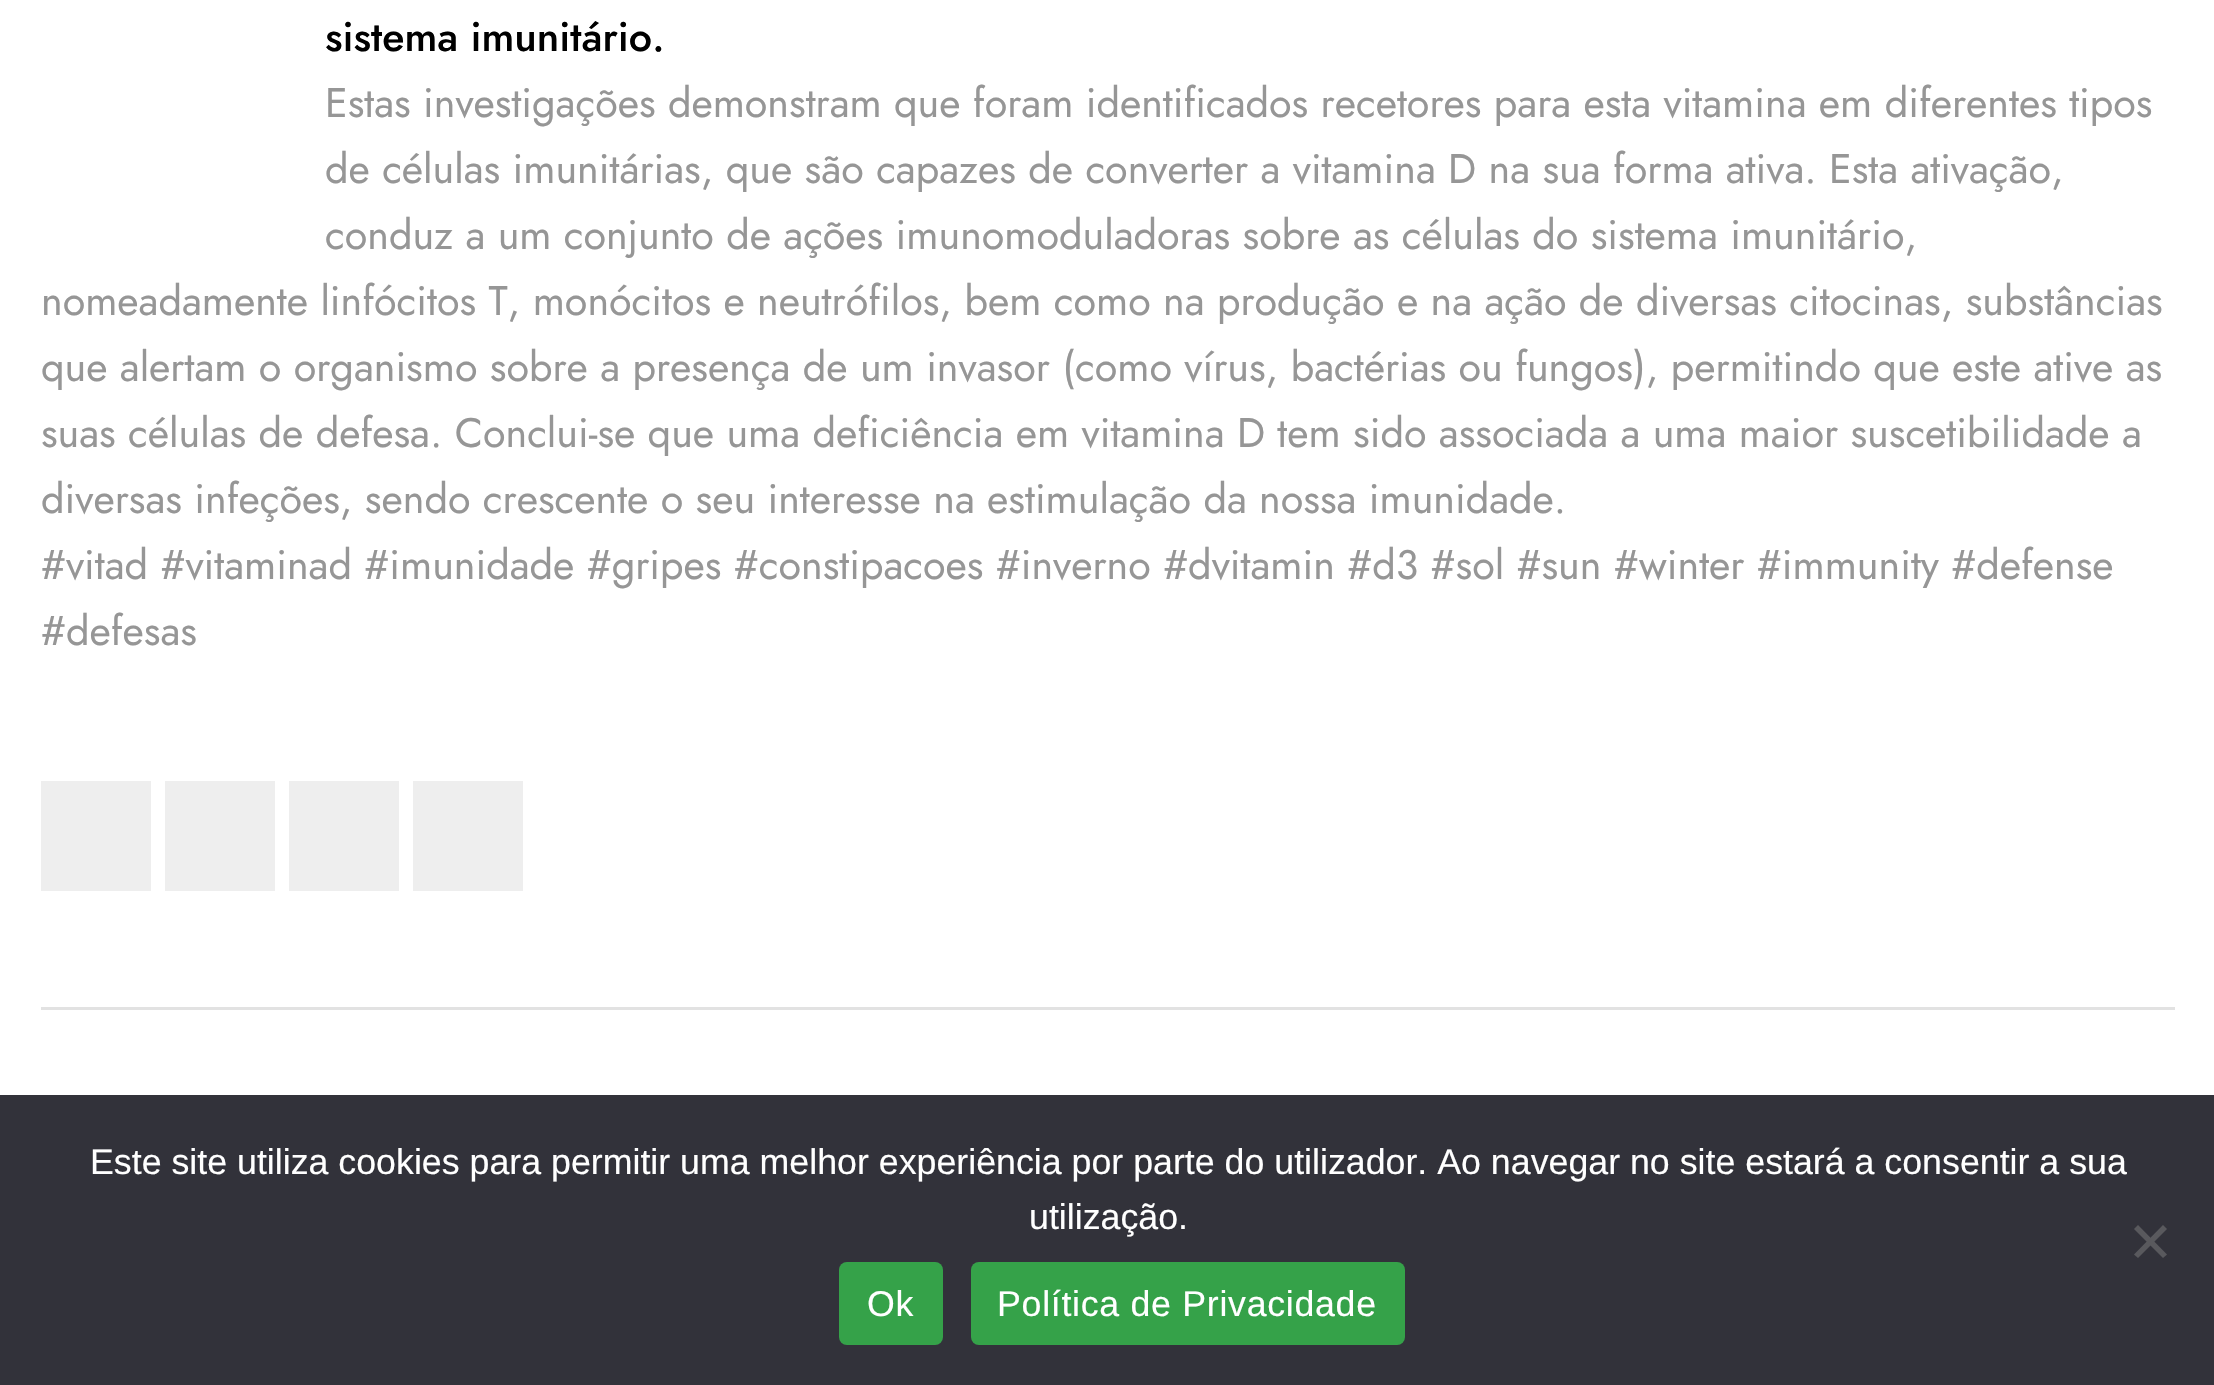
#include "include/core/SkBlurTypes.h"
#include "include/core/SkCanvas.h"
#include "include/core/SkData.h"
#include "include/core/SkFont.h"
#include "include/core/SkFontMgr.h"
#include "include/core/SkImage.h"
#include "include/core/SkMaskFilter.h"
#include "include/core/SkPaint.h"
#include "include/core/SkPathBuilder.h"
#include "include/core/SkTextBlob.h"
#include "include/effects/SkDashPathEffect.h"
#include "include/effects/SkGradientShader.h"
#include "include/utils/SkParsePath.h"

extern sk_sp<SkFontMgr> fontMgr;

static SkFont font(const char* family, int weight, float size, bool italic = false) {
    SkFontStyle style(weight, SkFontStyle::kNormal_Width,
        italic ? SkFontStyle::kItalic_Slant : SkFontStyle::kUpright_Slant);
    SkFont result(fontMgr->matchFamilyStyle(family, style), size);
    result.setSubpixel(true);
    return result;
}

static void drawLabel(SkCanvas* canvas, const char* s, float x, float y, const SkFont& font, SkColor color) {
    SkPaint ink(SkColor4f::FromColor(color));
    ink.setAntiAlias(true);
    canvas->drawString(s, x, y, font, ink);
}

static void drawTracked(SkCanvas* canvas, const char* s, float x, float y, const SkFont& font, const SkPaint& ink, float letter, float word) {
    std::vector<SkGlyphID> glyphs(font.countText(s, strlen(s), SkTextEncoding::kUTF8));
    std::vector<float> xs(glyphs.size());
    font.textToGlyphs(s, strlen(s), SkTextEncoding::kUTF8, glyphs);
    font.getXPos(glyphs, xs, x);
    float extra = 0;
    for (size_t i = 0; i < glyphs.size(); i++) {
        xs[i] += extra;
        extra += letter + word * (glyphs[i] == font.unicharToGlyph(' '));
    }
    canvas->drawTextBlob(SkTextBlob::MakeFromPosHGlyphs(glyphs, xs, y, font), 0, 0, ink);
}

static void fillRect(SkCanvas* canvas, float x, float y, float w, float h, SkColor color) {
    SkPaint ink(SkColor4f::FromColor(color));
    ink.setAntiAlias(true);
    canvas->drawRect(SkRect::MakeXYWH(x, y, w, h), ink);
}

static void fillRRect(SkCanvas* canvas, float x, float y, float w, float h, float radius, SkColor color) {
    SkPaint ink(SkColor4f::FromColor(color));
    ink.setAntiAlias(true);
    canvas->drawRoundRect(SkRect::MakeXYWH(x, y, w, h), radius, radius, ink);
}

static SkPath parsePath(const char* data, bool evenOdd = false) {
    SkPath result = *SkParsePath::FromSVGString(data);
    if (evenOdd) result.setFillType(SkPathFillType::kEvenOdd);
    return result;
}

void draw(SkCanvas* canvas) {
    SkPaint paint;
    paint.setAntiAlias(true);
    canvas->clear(0xFFFFFFFF);
    SkFont font1 = font("Jost", 500, 41.25f);
    drawLabel(canvas, "sistema imunitário.", 325, 51, font1, 0xFF000000);
    SkFont font2 = font("Jost", 400, 41.25f);
    drawLabel(canvas, "Estas investigações demonstram que foram identificados recetores para esta vitamina em diferentes tipos", 325, 117, font2, 0xFF969696);
    drawLabel(canvas, "de células imunitárias, que são capazes de converter a vitamina D na sua forma ativa. Esta ativação,", 325, 183, font2, 0xFF969696);
    drawLabel(canvas, "conduz a um conjunto de ações imunomoduladoras sobre as células do sistema imunitário,", 325, 249, font2, 0xFF969696);
    drawLabel(canvas, "nomeadamente linfócitos T, monócitos e neutrófilos, bem como na produção e na ação de diversas citocinas, substâncias", 41, 315, font2, 0xFF969696);
    drawLabel(canvas, "que alertam o organismo sobre a presença de um invasor (como vírus, bactérias ou fungos), permitindo que este ative as", 41, 381, font2, 0xFF969696);
    drawLabel(canvas, "suas células de defesa. Conclui-se que uma deficiência em vitamina D tem sido associada a uma maior suscetibilidade a", 41, 447, font2, 0xFF969696);
    drawLabel(canvas, "diversas infeções, sendo crescente o seu interesse na estimulação da nossa imunidade.", 41, 513, font2, 0xFF969696);
    drawLabel(canvas, "#vitad #vitaminad #imunidade #gripes #constipacoes #inverno #dvitamin #d3 #sol #sun #winter #immunity #defense", 41, 579, font2, 0xFF969696);
    drawLabel(canvas, "#defesas", 41, 645, font2, 0xFF969696);
    fillRect(canvas, 41, 1007, 2134, 3, 0xFFE2E2E2);
    fillRect(canvas, 41, 781, 110, 110, 0xFFEEEEEE);
    fillRect(canvas, 165, 781, 110, 110, 0xFFEEEEEE);
    fillRect(canvas, 289, 781, 110, 110, 0xFFEEEEEE);
    fillRect(canvas, 413, 781, 110, 110, 0xFFEEEEEE);
    fillRect(canvas, 0, 1095, 2214, 290, 0xFF32323A);
    SkFont font3 = font("Liberation Sans", 400, 35.75f);
    drawLabel(canvas, "Este site utiliza cookies para permitir uma melhor experiência por parte do utilizador. Ao navegar no site estará a consentir a sua", 90, 1174, font3, 0xFFFFFFFF);
    drawLabel(canvas, "utilização.", 1029, 1229, font3, 0xFFFFFFFF);
    paint.setColor(0xFF59595D);
    canvas->drawPath(parsePath("M2163 1225L2167 1229L2138 1258L2134 1254.5Z"), paint);
    canvas->drawPath(parsePath("M2134 1229L2138 1225L2167 1254.5L2163 1258Z"), paint);
    fillRRect(canvas, 839, 1262, 104, 83, 8, 0xFF35A249);
    paint.setColor(0xFFFFFFFF);
    drawTracked(canvas, "Ok", 867, 1316, font3, paint, 0.7f, 0);
    fillRRect(canvas, 971, 1262, 434, 83, 8, 0xFF35A249);
    drawTracked(canvas, "Política de Privacidade", 997, 1316, font3, paint, 0.7f, 0);
}
